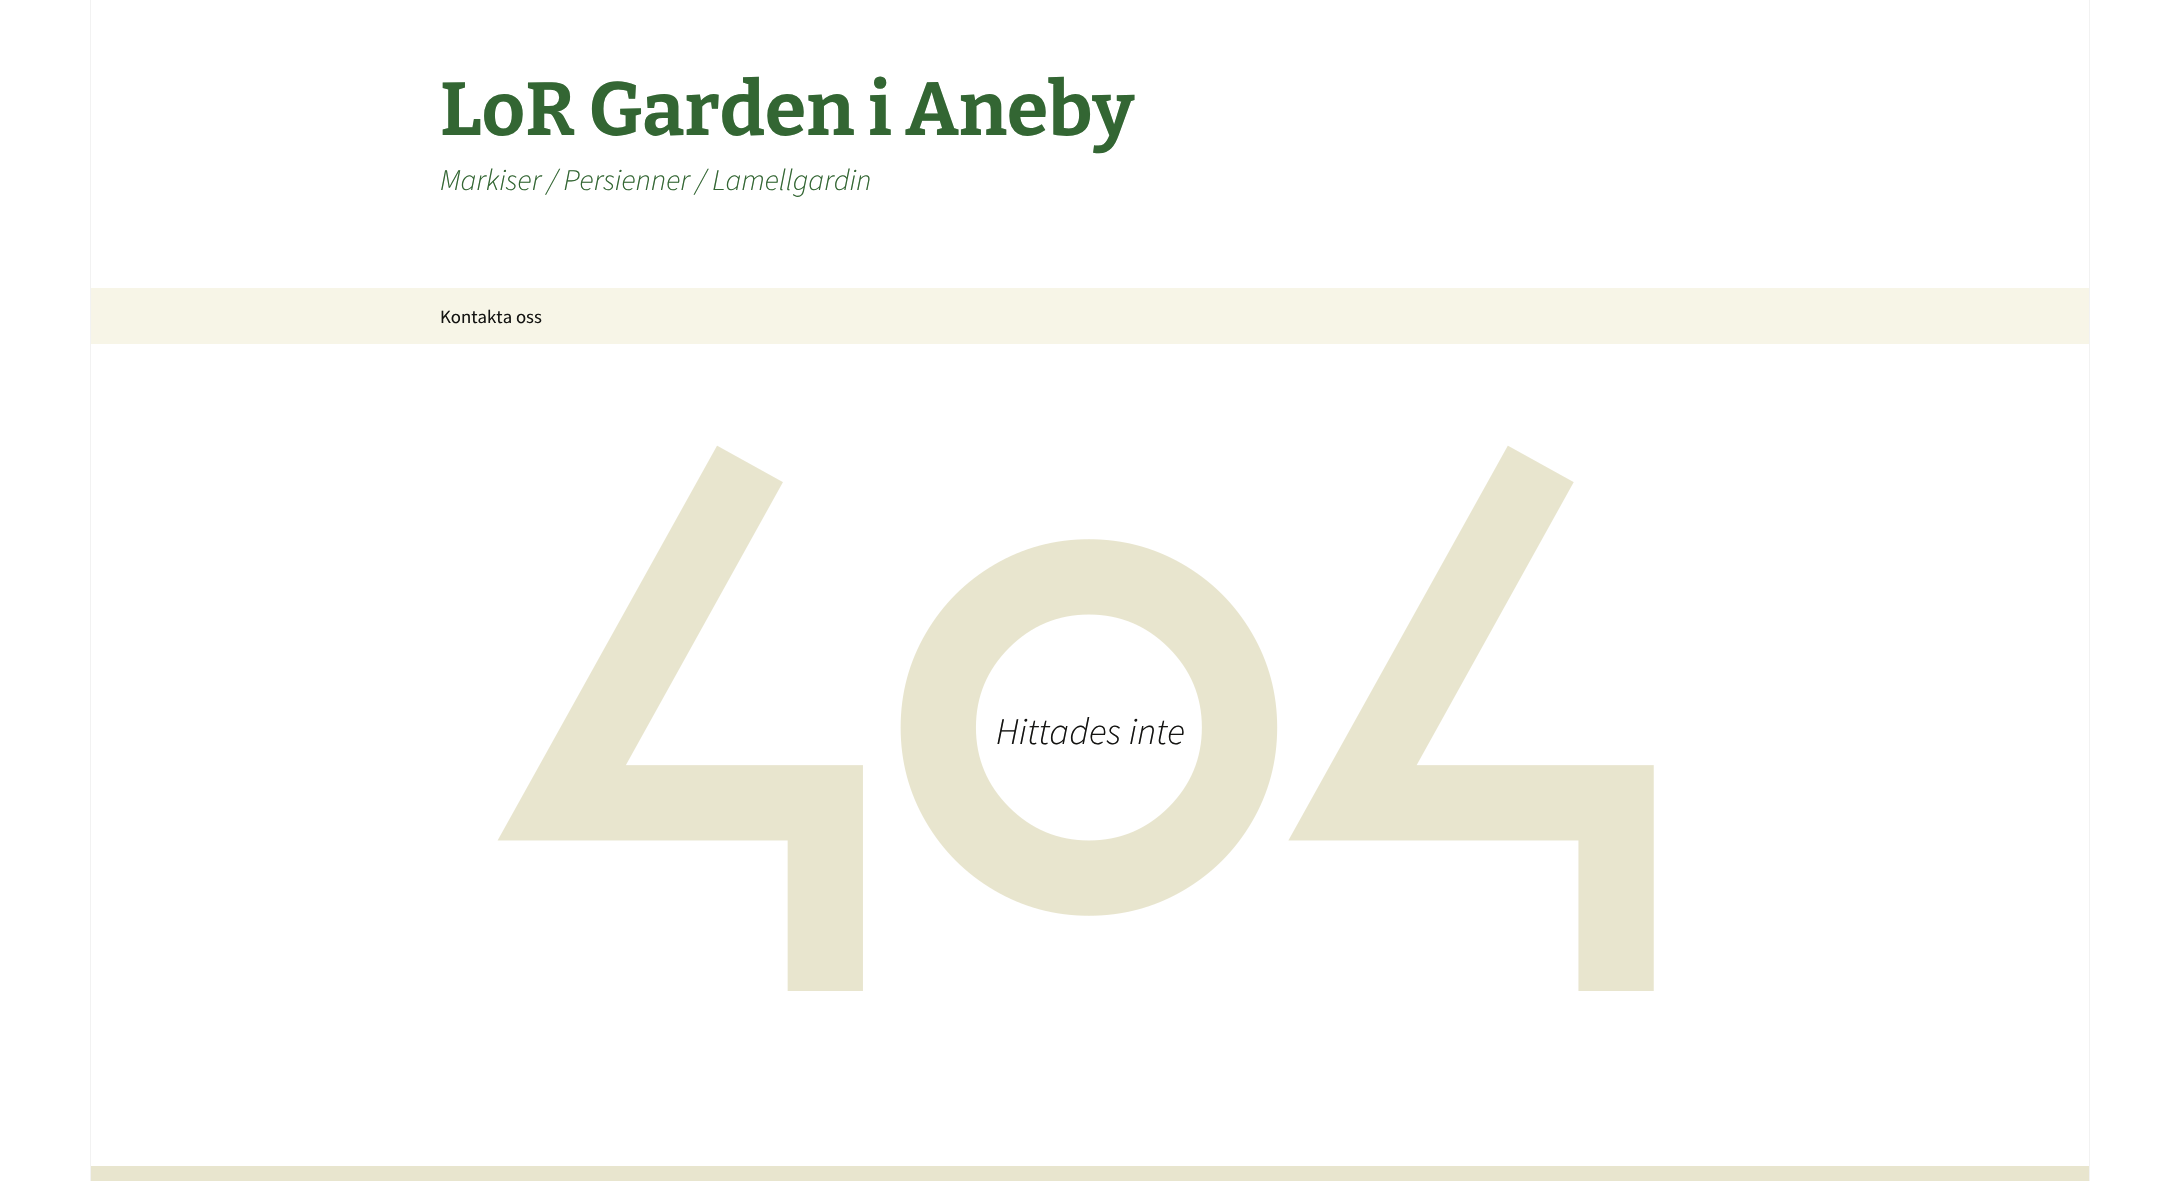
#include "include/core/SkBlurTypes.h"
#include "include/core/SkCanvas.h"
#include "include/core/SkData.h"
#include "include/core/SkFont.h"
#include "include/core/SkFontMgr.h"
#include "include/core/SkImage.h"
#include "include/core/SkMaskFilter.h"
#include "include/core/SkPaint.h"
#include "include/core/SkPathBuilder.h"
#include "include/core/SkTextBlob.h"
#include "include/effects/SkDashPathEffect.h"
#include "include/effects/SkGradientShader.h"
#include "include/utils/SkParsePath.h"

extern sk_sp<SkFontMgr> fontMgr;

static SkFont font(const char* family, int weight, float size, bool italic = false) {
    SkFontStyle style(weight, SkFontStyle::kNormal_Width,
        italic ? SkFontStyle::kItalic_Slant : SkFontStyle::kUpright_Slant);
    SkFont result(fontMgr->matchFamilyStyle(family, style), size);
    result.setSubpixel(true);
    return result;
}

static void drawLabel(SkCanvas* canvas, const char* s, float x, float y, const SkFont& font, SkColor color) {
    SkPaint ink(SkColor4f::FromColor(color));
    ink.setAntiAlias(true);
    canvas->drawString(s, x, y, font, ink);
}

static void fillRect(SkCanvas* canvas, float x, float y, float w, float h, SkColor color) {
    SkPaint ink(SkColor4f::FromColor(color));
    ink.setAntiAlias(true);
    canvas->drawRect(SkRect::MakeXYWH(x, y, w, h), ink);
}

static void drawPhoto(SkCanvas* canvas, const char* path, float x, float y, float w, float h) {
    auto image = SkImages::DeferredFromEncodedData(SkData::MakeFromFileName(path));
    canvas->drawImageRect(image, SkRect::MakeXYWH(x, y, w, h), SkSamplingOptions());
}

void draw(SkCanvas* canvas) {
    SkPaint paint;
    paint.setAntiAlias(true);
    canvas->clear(0xFFFFFFFF);
    fillRect(canvas, 2089, 0, 1, 1181, 0xFFF2F2F2);
    fillRect(canvas, 90, 0, 1, 1181, 0xFFF2F2F2);
    SkFont font1 = font("Bitter", 100, 75);
    drawLabel(canvas, "LoR Garden i Aneby", 440, 135, font1, 0xFF336633);
    SkFont font2 = font("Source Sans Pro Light", 300, 30, true);
    drawLabel(canvas, "Markiser / Persienner / Lamellgardin", 440, 190, font2, 0xFF336633);
    fillRect(canvas, 91, 288, 1998, 56, 0xFFF7F5E7);
    SkFont font3 = font("Source Sans Pro", 400, 18.75f);
    drawLabel(canvas, "Kontakta oss", 440, 323, font3, 0xFF141412);
    SkFont font4 = font("Source Sans Pro Light", 300, 37.5f, true);
    drawLabel(canvas, "Hittades inte", 996, 744, font4, 0xFF141412);
    drawPhoto(canvas, "assets/img1.png", 497, 445, 1157, 546);
    fillRect(canvas, 91, 1166, 1998, 15, 0xFFE8E5CE);
}
